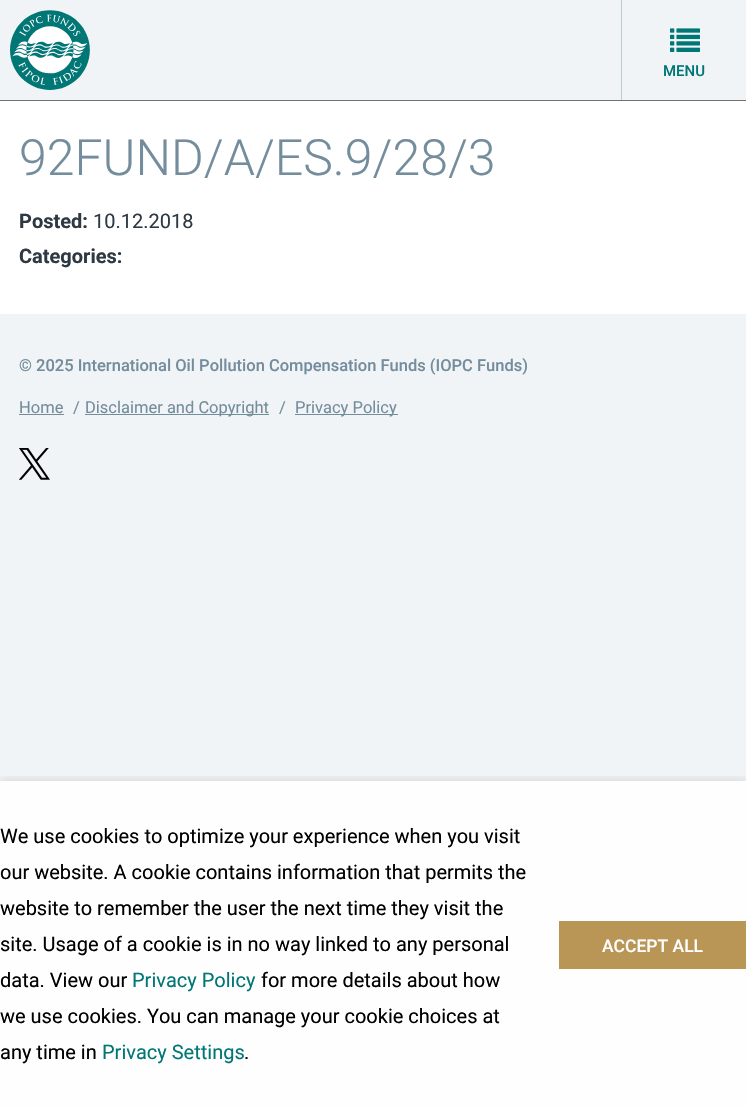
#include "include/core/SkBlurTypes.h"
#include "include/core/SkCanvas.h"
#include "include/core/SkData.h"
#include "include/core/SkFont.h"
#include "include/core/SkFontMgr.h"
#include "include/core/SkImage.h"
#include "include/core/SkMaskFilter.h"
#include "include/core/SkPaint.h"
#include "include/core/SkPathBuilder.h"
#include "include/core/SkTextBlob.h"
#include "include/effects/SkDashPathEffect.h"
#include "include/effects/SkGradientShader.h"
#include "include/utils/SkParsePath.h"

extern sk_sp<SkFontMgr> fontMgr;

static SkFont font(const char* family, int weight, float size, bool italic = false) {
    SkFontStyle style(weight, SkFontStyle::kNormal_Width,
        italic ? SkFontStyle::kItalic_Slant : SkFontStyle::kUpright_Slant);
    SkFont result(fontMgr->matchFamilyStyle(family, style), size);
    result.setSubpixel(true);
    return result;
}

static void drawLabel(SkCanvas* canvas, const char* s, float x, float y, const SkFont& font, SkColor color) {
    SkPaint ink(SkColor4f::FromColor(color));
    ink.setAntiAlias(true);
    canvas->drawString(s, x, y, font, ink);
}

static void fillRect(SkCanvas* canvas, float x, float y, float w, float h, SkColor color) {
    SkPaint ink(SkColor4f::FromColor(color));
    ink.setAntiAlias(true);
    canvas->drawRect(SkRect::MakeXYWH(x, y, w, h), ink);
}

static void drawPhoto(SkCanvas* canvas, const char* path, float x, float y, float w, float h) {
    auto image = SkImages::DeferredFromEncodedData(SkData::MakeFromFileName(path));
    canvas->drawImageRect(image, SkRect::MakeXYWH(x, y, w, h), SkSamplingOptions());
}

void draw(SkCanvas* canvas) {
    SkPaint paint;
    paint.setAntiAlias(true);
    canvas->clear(0xFFF0F4F7);
    fillRect(canvas, 0, 100, 746, 1, 0xFF707070);
    drawPhoto(canvas, "assets/img1.png", 10, 10, 80, 80);
    fillRect(canvas, 621, 0, 1, 100, 0xFFBECAD1);
    drawPhoto(canvas, "assets/img2.png", 670, 28, 30, 24);
    SkFont font1 = font("Roboto", 500, 15);
    drawLabel(canvas, "MENU", 663, 76, font1, 0xFF007675);
    fillRect(canvas, 0, 101, 746, 213, 0xFFFFFFFF);
    SkFont font2 = font("Roboto", 300, 50);
    drawLabel(canvas, "92FUND/A/ES.9/28/3", 19, 175, font2, 0xFF748D9C);
    SkFont font3 = font("Roboto", 700, 20);
    drawLabel(canvas, "Posted:", 19, 228, font3, 0xFF2E3943);
    SkFont font4 = font("Roboto", 400, 20);
    drawLabel(canvas, "10.12.2018", 93, 228, font4, 0xFF2E3943);
    drawLabel(canvas, "Categories:", 19, 263, font3, 0xFF2E3943);
    SkFont font5 = font("Roboto", 500, 16.5f);
    drawLabel(canvas, "© 2025 International Oil Pollution Compensation Funds (IOPC Funds)", 19, 371, font5, 0xFF748D9C);
    SkFont font6 = font("Roboto", 400, 16.5f);
    drawLabel(canvas, "Home", 19, 413, font6, 0xFF748D9C);
    fillRect(canvas, 19, 414, 45, 1, 0xFF748D9C);
    drawLabel(canvas, "/", 73, 413, font6, 0xFF748D9C);
    fillRect(canvas, 85, 414, 184, 1, 0xFF748D9C);
    drawLabel(canvas, "Disclaimer and Copyright", 85, 413, font6, 0xFF748D9C);
    drawLabel(canvas, "/", 279, 413, font6, 0xFF748D9C);
    fillRect(canvas, 295, 414, 103, 1, 0xFF748D9C);
    drawLabel(canvas, "Privacy Policy", 295, 413, font6, 0xFF748D9C);
    drawPhoto(canvas, "assets/img3.png", 19, 448, 31, 32);
    canvas->save();
    canvas->clipRect(SkRect::MakeXYWH(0, 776, 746, 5));
    paint.setColor(0x1A000000);
    paint.setMaskFilter(SkMaskFilter::MakeBlur(kNormal_SkBlurStyle, 4));
    canvas->drawRect(SkRect::MakeXYWH(0, 779, 746, 327), paint);
    paint.setMaskFilter(nullptr);
    canvas->restore();
    fillRect(canvas, 0, 781, 746, 327, 0xE6FFFFFF);
    drawLabel(canvas, "We use cookies to optimize your experience when you visit", 0, 843, font4, 0xFF000000);
    drawLabel(canvas, "our website. A cookie contains information that permits the", 0, 879, font4, 0xFF000000);
    drawLabel(canvas, "website to remember the user the next time they visit the", 0, 915, font4, 0xFF000000);
    drawLabel(canvas, "site. Usage of a cookie is in no way linked to any personal", 0, 951, font4, 0xFF000000);
    drawLabel(canvas, "data. View our", 0, 987, font4, 0xFF000000);
    drawLabel(canvas, "Privacy Policy", 132, 987, font4, 0xFF007675);
    drawLabel(canvas, "for more details about how", 261, 987, font4, 0xFF000000);
    drawLabel(canvas, "we use cookies. You can manage your cookie choices at", 0, 1023, font4, 0xFF000000);
    drawLabel(canvas, "any time in", 0, 1059, font4, 0xFF000000);
    drawLabel(canvas, "Privacy Settings", 102, 1059, font4, 0xFF007675);
    drawLabel(canvas, ".", 244, 1059, font4, 0xFF000000);
    fillRect(canvas, 559, 921, 187, 48, 0xFFB99656);
    SkFont font7 = font("Roboto", 500, 17.5f);
    drawLabel(canvas, "ACCEPT ALL", 602, 952, font7, 0xFFFFFFFF);
}
